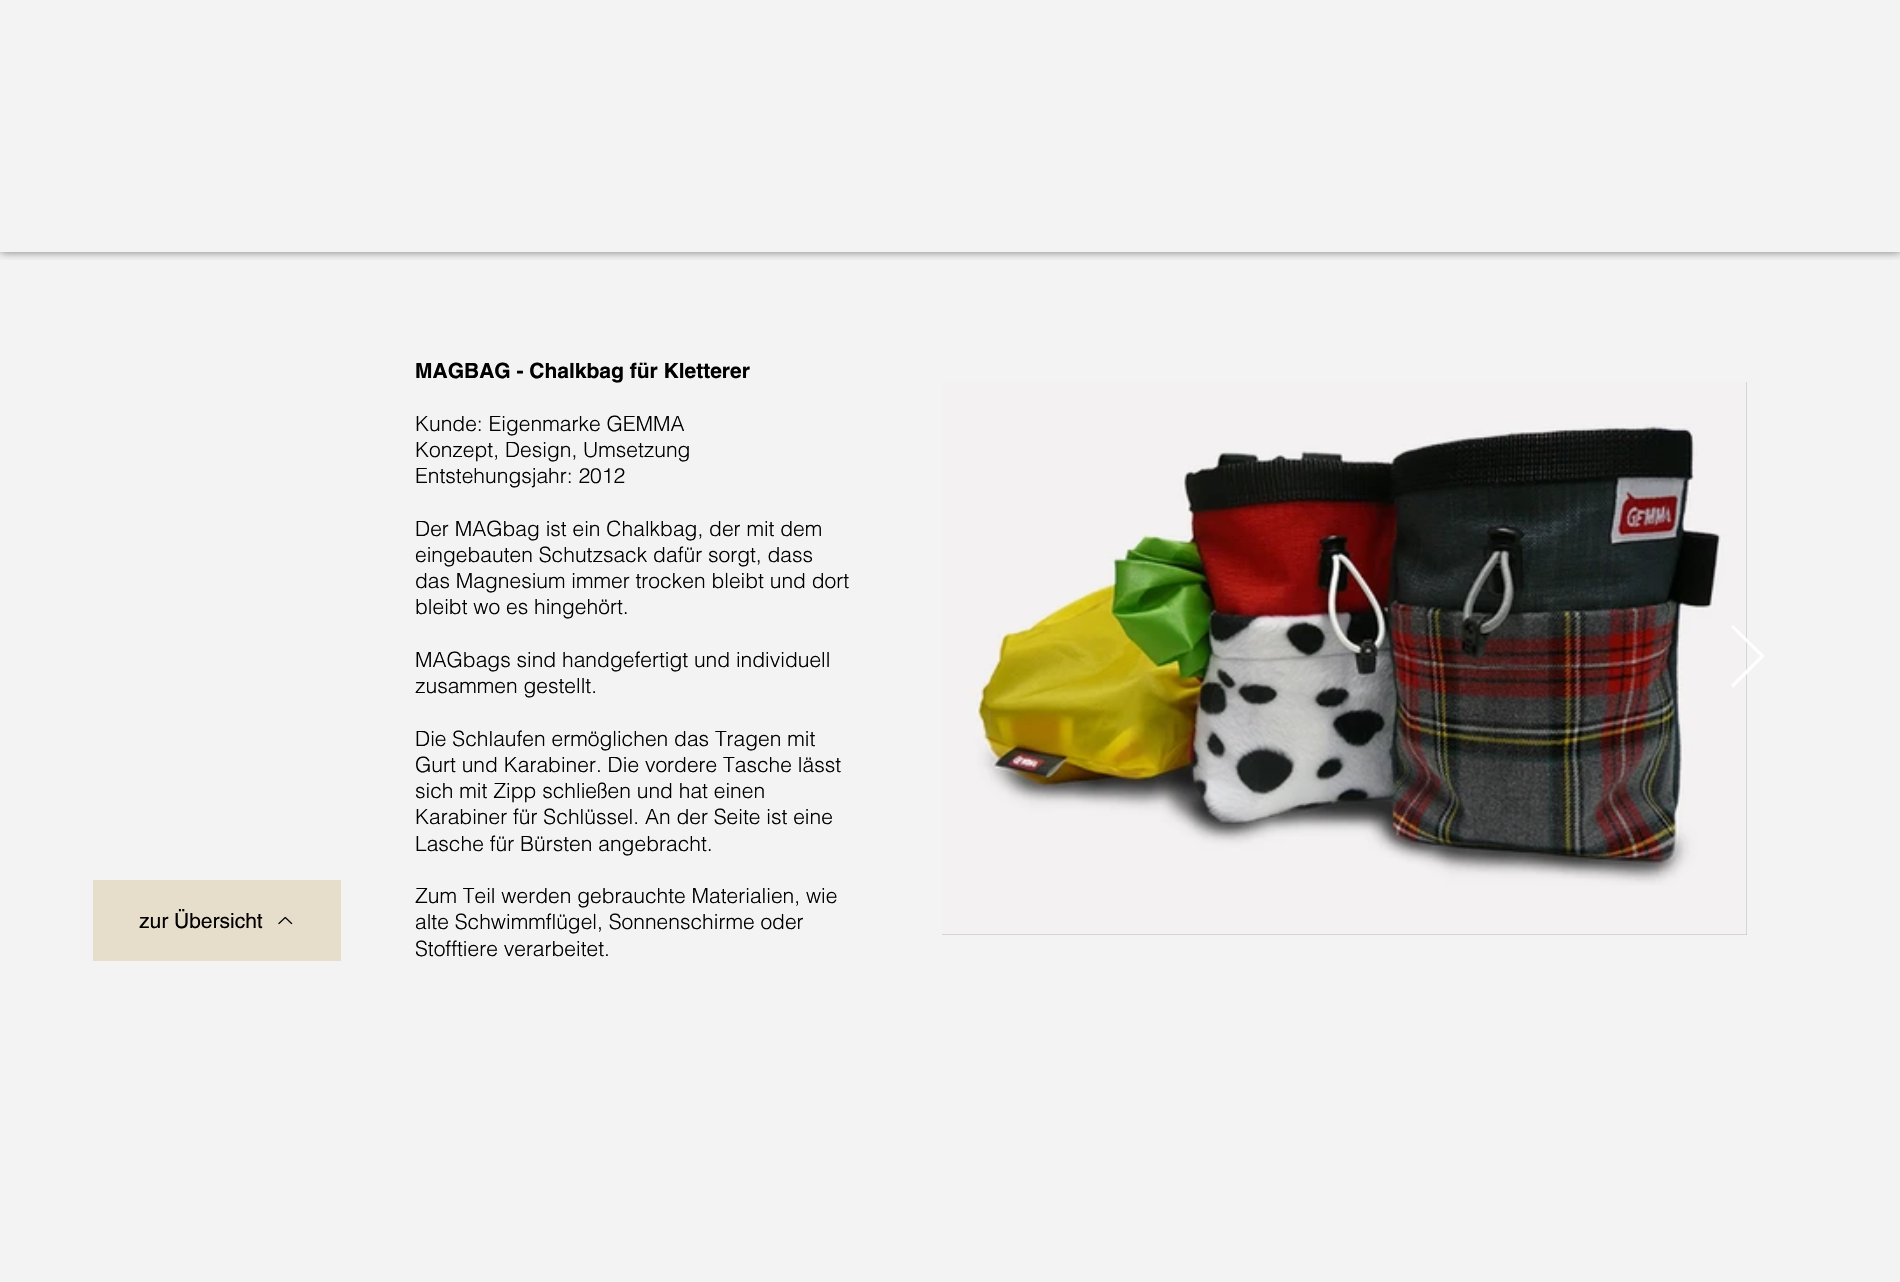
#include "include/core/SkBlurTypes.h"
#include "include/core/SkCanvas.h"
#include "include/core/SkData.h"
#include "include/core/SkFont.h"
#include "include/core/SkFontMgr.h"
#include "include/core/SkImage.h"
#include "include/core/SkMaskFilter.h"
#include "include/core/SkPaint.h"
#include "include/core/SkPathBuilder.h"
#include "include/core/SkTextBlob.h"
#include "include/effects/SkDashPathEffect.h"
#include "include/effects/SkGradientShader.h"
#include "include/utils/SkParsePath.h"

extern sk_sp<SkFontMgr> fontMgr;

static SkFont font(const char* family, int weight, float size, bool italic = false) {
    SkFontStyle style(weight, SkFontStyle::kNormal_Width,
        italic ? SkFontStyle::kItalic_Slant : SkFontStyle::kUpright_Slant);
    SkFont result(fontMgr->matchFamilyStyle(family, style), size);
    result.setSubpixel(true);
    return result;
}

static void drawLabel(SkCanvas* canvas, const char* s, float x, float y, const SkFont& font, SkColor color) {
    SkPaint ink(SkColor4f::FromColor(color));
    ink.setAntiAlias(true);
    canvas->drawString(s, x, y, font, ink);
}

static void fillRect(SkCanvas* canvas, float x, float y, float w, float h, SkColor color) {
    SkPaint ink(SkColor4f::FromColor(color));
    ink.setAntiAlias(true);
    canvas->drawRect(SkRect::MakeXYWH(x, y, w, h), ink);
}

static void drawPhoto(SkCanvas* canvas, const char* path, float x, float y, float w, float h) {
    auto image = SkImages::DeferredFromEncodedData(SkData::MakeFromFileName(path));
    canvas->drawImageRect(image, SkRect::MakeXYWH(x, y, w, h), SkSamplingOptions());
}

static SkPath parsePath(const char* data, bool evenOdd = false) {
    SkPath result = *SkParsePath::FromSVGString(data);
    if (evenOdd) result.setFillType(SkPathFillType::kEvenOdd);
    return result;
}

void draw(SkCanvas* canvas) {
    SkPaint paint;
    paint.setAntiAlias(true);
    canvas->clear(0xFFF3F3F3);
    canvas->save();
    canvas->clipRect(SkRect::MakeXYWH(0, 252, 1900, 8));
    paint.setColor(0x80000000);
    paint.setMaskFilter(SkMaskFilter::MakeBlur(kNormal_SkBlurStyle, 4.5f));
    canvas->drawRect(SkRect::MakeXYWH(0, 0, 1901, 252), paint);
    paint.setMaskFilter(nullptr);
    canvas->restore();
    fillRect(canvas, 93, 880, 248, 81, 0xFFE6DECA);
    SkFont font1 = font("helvetica", 400, 21);
    drawLabel(canvas, "zur Übersicht", 139, 928, font1, 0xFF000000);
    drawPhoto(canvas, "assets/img1.png", 278, 916, 15, 9);
    SkFont font2 = font("helvetica", 700, 21);
    drawLabel(canvas, "MAGBAG - Chalkbag für Kletterer", 415, 378, font2, 0xFF000000);
    SkFont font3 = font("helvetica", 300, 21);
    drawLabel(canvas, "Kunde: Eigenmarke GEMMA", 415, 431, font3, 0xFF000000);
    drawLabel(canvas, "Konzept, Design, Umsetzung", 415, 457, font3, 0xFF000000);
    drawLabel(canvas, "Entstehungsjahr: 2012", 415, 483, font3, 0xFF000000);
    drawLabel(canvas, "Der MAGbag ist ein Chalkbag, der mit dem", 415, 536, font3, 0xFF000000);
    drawLabel(canvas, "eingebauten Schutzsack dafür sorgt, dass", 415, 562, font3, 0xFF000000);
    drawLabel(canvas, "das Magnesium immer trocken bleibt und dort", 415, 588, font3, 0xFF000000);
    drawLabel(canvas, "bleibt wo es hingehört.", 415, 614, font3, 0xFF000000);
    drawLabel(canvas, "MAGbags sind handgefertigt und individuell", 415, 667, font3, 0xFF000000);
    drawLabel(canvas, "zusammen gestellt.", 415, 693, font3, 0xFF000000);
    drawLabel(canvas, "Die Schlaufen ermöglichen das Tragen mit", 415, 746, font3, 0xFF000000);
    drawLabel(canvas, "Gurt und Karabiner. Die vordere Tasche lässt", 415, 772, font3, 0xFF000000);
    drawLabel(canvas, "sich mit Zipp schließen und hat einen", 415, 798, font3, 0xFF000000);
    drawLabel(canvas, "Karabiner für Schlüssel. An der Seite ist eine", 415, 824, font3, 0xFF000000);
    drawLabel(canvas, "Lasche für Bürsten angebracht.", 415, 851, font3, 0xFF000000);
    drawLabel(canvas, "Zum Teil werden gebrauchte Materialien, wie", 415, 903, font3, 0xFF000000);
    drawLabel(canvas, "alte Schwimmflügel, Sonnenschirme oder", 415, 929, font3, 0xFF000000);
    drawLabel(canvas, "Stofftiere verarbeitet.", 415, 956, font3, 0xFF000000);
    fillRect(canvas, 942, 382, 805, 553, 0xFFB9B9B9);
    drawPhoto(canvas, "assets/img2.png", 942, 382, 805, 553);
    paint.setColor(0xE6FFFFFF);
    canvas->drawPath(parsePath("M1731 627L1733 625L1765 656L1733 688L1731 685L1760 656Z"), paint);
}
